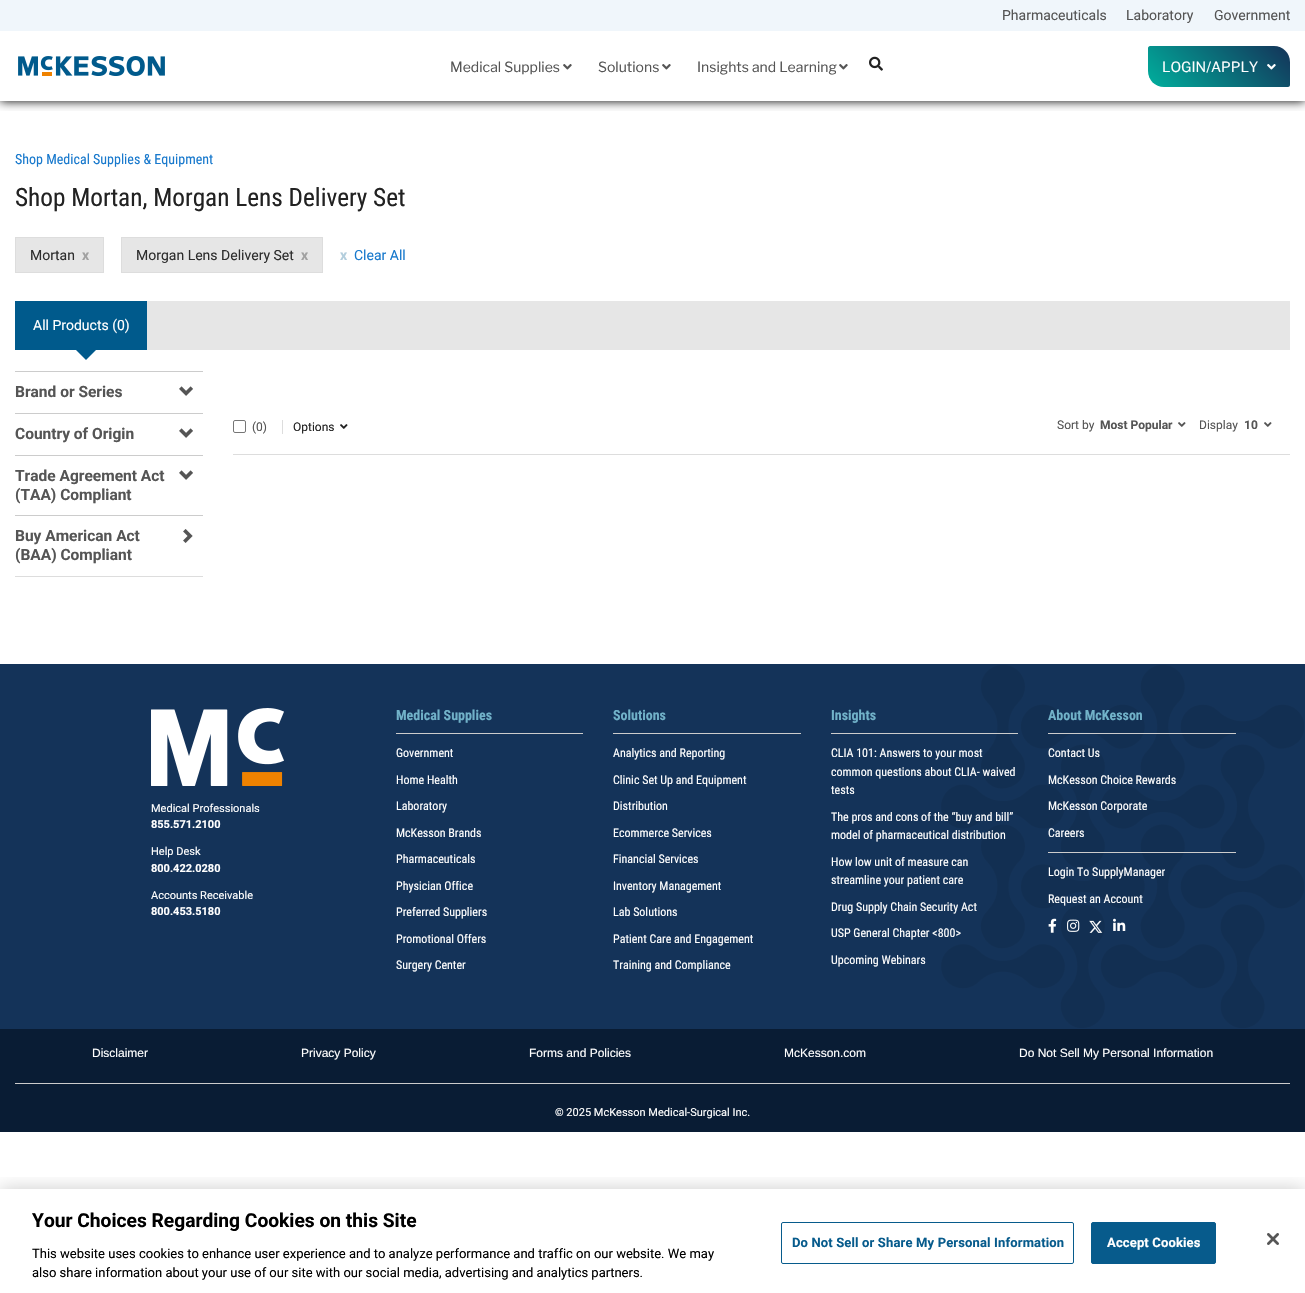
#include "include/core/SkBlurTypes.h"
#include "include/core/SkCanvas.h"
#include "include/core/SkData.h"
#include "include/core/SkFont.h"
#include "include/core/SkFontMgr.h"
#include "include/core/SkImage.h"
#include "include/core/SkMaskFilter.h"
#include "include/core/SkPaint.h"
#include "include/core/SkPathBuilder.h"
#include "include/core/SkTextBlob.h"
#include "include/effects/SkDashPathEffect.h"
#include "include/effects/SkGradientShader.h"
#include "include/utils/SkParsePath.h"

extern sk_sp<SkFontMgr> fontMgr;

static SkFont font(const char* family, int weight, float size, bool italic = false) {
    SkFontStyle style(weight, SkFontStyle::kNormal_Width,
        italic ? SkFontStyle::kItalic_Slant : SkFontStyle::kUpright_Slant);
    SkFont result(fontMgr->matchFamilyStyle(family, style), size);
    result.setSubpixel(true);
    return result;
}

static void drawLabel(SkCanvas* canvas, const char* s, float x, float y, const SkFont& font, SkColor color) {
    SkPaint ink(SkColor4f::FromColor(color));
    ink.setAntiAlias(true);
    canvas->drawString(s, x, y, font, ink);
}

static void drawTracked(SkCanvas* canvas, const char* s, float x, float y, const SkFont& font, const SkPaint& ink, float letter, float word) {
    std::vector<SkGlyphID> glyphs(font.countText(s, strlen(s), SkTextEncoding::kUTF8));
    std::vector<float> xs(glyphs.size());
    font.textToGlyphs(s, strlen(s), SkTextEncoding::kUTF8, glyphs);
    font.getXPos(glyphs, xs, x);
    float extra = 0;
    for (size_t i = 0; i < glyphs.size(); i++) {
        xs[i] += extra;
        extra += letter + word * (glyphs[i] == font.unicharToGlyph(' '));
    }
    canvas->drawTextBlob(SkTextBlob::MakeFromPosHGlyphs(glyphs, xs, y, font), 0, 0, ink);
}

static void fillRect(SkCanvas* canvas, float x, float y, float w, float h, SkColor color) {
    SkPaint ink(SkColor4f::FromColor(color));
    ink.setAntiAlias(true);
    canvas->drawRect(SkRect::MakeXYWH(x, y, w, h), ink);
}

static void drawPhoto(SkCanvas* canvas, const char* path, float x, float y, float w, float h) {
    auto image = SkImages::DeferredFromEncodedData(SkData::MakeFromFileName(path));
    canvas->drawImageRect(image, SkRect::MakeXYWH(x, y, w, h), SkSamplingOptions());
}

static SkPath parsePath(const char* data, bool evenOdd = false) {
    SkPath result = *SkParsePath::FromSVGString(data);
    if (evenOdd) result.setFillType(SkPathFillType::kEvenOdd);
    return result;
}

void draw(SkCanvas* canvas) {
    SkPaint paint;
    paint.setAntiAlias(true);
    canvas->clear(0xFFFFFFFF);
    canvas->save();
    canvas->clipRect(SkRect::MakeXYWH(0, 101, 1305, 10));
    paint.setColor(0xFF000000);
    paint.setMaskFilter(SkMaskFilter::MakeBlur(kNormal_SkBlurStyle, 5));
    canvas->drawRect(SkRect::MakeXYWH(0, 0, 1305, 101), paint);
    paint.setMaskFilter(nullptr);
    canvas->restore();
    fillRect(canvas, 0, 0, 1305, 31, 0xFFF0F6FB);
    SkFont font1 = font("Roboto", 400, 14);
    drawLabel(canvas, "Pharmaceuticals", 1002, 20, font1, 0xFF555555);
    drawLabel(canvas, "Laboratory", 1126, 20, font1, 0xFF555555);
    drawLabel(canvas, "Government", 1214, 20, font1, 0xFF555555);
    drawPhoto(canvas, "assets/img1.png", 18, 56, 147, 20);
    SkFont font2 = font("Libre Franklin", 400, 14);
    drawLabel(canvas, "Medical Supplies", 450, 72, font2, 0xFF555555);
    drawPhoto(canvas, "assets/img2.png", 563, 64, 9, 6);
    drawLabel(canvas, "Solutions", 598, 72, font2, 0xFF555555);
    drawPhoto(canvas, "assets/img2.png", 662, 64, 9, 6);
    drawLabel(canvas, "Insights and Learning", 697, 72, font2, 0xFF555555);
    drawPhoto(canvas, "assets/img2.png", 839, 64, 9, 6);
    drawPhoto(canvas, "assets/img3.png", 869, 56, 14, 15);
    {
        const SkColor colors[] = {0xFF00AF9D, 0xFF143359};
        const float stops[] = {0, 1};
        const SkPoint ends[] = {{1173, 112}, {1265, 21}};
        paint.setShader(SkGradientShader::MakeLinear(ends, colors, stops, 2, SkTileMode::kClamp));
        paint.setAlpha(255);
    }
    canvas->drawPath(parsePath("M1150 46H1274C1283 46 1290 53 1290 62V85C1290 86 1289 87 1288 87H1164C1155 87 1148 80 1148 71V48C1148 47 1149 46 1150 46Z"), paint);
    drawLabel(canvas, "LOGIN/APPLY", 1162, 72, font2, 0xFFFFFFFF);
    drawPhoto(canvas, "assets/img4.png", 1267, 64, 9, 6);
    SkFont font3 = font("Roboto Condensed", 400, 14);
    drawLabel(canvas, "Shop Medical Supplies & Equipment", 15, 164, font3, 0xFF1879CD);
    SkFont font4 = font("Roboto Condensed", 400, 25.25f);
    drawLabel(canvas, "Shop Mortan, Morgan Lens Delivery Set", 15, 206, font4, 0xFF222222);
    paint.setShader(nullptr);
    paint.setColor(0xFFE6E6E6);
    canvas->drawRect(SkRect::MakeXYWH(15.5f, 237.5f, 88, 35), paint);
    paint.setStroke(true);
    paint.setStrokeWidth(1);
    paint.setColor(0xFFDDDDDD);
    canvas->drawRect(SkRect::MakeXYWH(15.5f, 237.5f, 88, 35), paint);
    drawLabel(canvas, "Mortan", 30, 260, font1, 0xFF2E2E2E);
    SkFont font5 = font("Roboto", 700, 14);
    drawLabel(canvas, "x", 82, 260, font5, 0xFFA1A1A1);
    paint.setStroke(false);
    paint.setColor(0xFFE6E6E6);
    canvas->drawRect(SkRect::MakeXYWH(121.5f, 237.5f, 201, 35), paint);
    paint.setStroke(true);
    paint.setColor(0xFFDDDDDD);
    canvas->drawRect(SkRect::MakeXYWH(121.5f, 237.5f, 201, 35), paint);
    drawLabel(canvas, "Morgan Lens Delivery Set", 136, 260, font1, 0xFF2E2E2E);
    drawLabel(canvas, "x", 301, 260, font5, 0xFFA1A1A1);
    drawLabel(canvas, "x", 340, 260, font5, 0xFFB3CEDD);
    drawLabel(canvas, "Clear All", 354, 260, font1, 0xFF1879CD);
    fillRect(canvas, 147, 301, 1143, 49, 0xFFE6E6E6);
    fillRect(canvas, 15, 301, 132, 49, 0xFF005A8C);
    drawLabel(canvas, "All Products (0)", 33, 330, font1, 0xFFFFFFFF);
    paint.setStroke(false);
    paint.setColor(0xFF005A8C);
    canvas->drawPath(parsePath("M76 350H96L86 360Z"), paint);
    fillRect(canvas, 15, 576, 188, 1, 0xFFDDDDDD);
    fillRect(canvas, 15, 371, 188, 1, 0xFFCCCCCC);
    SkFont font6 = font("Roboto", 700, 15.5f);
    drawLabel(canvas, "Brand or Series", 15, 397, font6, 0xFF555555);
    drawPhoto(canvas, "assets/img5.png", 179, 386, 14, 10);
    fillRect(canvas, 15, 413, 188, 1, 0xFFCCCCCC);
    drawLabel(canvas, "Country of Origin", 15, 439, font6, 0xFF555555);
    drawPhoto(canvas, "assets/img5.png", 179, 428, 14, 10);
    fillRect(canvas, 15, 455, 188, 1, 0xFFCCCCCC);
    drawLabel(canvas, "Trade Agreement Act", 15, 481, font6, 0xFF555555);
    drawPhoto(canvas, "assets/img5.png", 179, 470, 14, 10);
    drawLabel(canvas, "(TAA) Compliant", 15, 500, font6, 0xFF555555);
    fillRect(canvas, 15, 515, 188, 1, 0xFFCCCCCC);
    drawLabel(canvas, "Buy American Act", 15, 541, font6, 0xFF555555);
    drawPhoto(canvas, "assets/img6.png", 183, 529, 10, 14);
    drawLabel(canvas, "(BAA) Compliant", 15, 560, font6, 0xFF555555);
    fillRect(canvas, 233, 454, 1057, 1, 0xFFDDDDDD);
    paint.setStroke(true);
    paint.setColor(0xFF767676);
    canvas->drawRoundRect(SkRect::MakeXYWH(233.5f, 420.5f, 12, 12), 1.5f, 1.5f, paint);
    SkFont font7 = font("Roboto", 400, 12);
    drawLabel(canvas, "(0)", 252, 431, font7, 0xFF555555);
    fillRect(canvas, 282, 420, 1, 14, 0xFFDDDDDD);
    drawLabel(canvas, "Options", 293, 431, font7, 0xFF222222);
    drawPhoto(canvas, "assets/img7.png", 340, 424, 8, 5);
    drawLabel(canvas, "Sort by", 1057, 429, font7, 0xFF555555);
    SkFont font8 = font("Roboto", 700, 12);
    drawLabel(canvas, "Most Popular", 1100, 429, font8, 0xFF555555);
    drawPhoto(canvas, "assets/img8.png", 1178, 422, 8, 5);
    drawLabel(canvas, "Display", 1199, 429, font7, 0xFF555555);
    drawLabel(canvas, "10", 1244, 429, font8, 0xFF555555);
    drawPhoto(canvas, "assets/img8.png", 1264, 422, 8, 5);
    fillRect(canvas, 0, 664, 1305, 365, 0xFF143359);
    drawPhoto(canvas, "assets/img9.png", 941, 665, 363, 363);
    drawPhoto(canvas, "assets/img10.png", 151, 708, 133, 78);
    SkFont font9 = font("Roboto", 400, 11);
    drawLabel(canvas, "Medical Professionals", 151, 812, font9, 0xFFFFFFFF);
    SkFont font10 = font("Roboto", 700, 11);
    drawLabel(canvas, "855.571.2100", 151, 828, font10, 0xFFFFFFFF);
    drawLabel(canvas, "Help Desk", 151, 855, font9, 0xFFFFFFFF);
    drawLabel(canvas, "800.422.0280", 151, 872, font10, 0xFFFFFFFF);
    drawLabel(canvas, "Accounts Receivable", 151, 899, font9, 0xFFFFFFFF);
    drawLabel(canvas, "800.453.5180", 151, 915, font10, 0xFFFFFFFF);
    SkFont font11 = font("Roboto Condensed", 700, 14);
    drawLabel(canvas, "Medical Supplies", 396, 720, font11, 0xFF71B2C9);
    fillRect(canvas, 396, 733, 187, 1, 0xFFCCCCCC);
    SkFont font12 = font("Roboto Condensed", 400, 12);
    drawLabel(canvas, "Government", 396, 757, font12, 0xFFFFFFFF);
    drawLabel(canvas, "Home Health", 396, 784, font12, 0xFFFFFFFF);
    drawLabel(canvas, "Laboratory", 396, 810, font12, 0xFFFFFFFF);
    drawLabel(canvas, "McKesson Brands", 396, 837, font12, 0xFFFFFFFF);
    drawLabel(canvas, "Pharmaceuticals", 396, 863, font12, 0xFFFFFFFF);
    drawLabel(canvas, "Physician Office", 396, 890, font12, 0xFFFFFFFF);
    drawLabel(canvas, "Preferred Suppliers", 396, 916, font12, 0xFFFFFFFF);
    drawLabel(canvas, "Promotional Offers", 396, 943, font12, 0xFFFFFFFF);
    drawLabel(canvas, "Surgery Center", 396, 969, font12, 0xFFFFFFFF);
    drawLabel(canvas, "Solutions", 613, 720, font11, 0xFF71B2C9);
    fillRect(canvas, 613, 733, 188, 1, 0xFFCCCCCC);
    drawLabel(canvas, "Analytics and Reporting", 613, 757, font12, 0xFFFFFFFF);
    drawLabel(canvas, "Clinic Set Up and Equipment", 613, 784, font12, 0xFFFFFFFF);
    drawLabel(canvas, "Distribution", 613, 810, font12, 0xFFFFFFFF);
    drawLabel(canvas, "Ecommerce Services", 613, 837, font12, 0xFFFFFFFF);
    drawLabel(canvas, "Financial Services", 613, 863, font12, 0xFFFFFFFF);
    drawLabel(canvas, "Inventory Management", 613, 890, font12, 0xFFFFFFFF);
    drawLabel(canvas, "Lab Solutions", 613, 916, font12, 0xFFFFFFFF);
    drawLabel(canvas, "Patient Care and Engagement", 613, 943, font12, 0xFFFFFFFF);
    drawLabel(canvas, "Training and Compliance", 613, 969, font12, 0xFFFFFFFF);
    drawLabel(canvas, "Insights", 831, 720, font11, 0xFF71B2C9);
    fillRect(canvas, 831, 733, 187, 1, 0xFFCCCCCC);
    drawLabel(canvas, "CLIA 101: Answers to your most", 831, 757, font12, 0xFFFFFFFF);
    drawLabel(canvas, "common questions about CLIA- waived", 831, 776, font12, 0xFFFFFFFF);
    drawLabel(canvas, "tests", 831, 794, font12, 0xFFFFFFFF);
    drawLabel(canvas, "The pros and cons of the “buy and bill”", 831, 821, font12, 0xFFFFFFFF);
    drawLabel(canvas, "model of pharmaceutical distribution", 831, 839, font12, 0xFFFFFFFF);
    drawLabel(canvas, "How low unit of measure can", 831, 866, font12, 0xFFFFFFFF);
    drawLabel(canvas, "streamline your patient care", 831, 884, font12, 0xFFFFFFFF);
    drawLabel(canvas, "Drug Supply Chain Security Act", 831, 911, font12, 0xFFFFFFFF);
    drawLabel(canvas, "USP General Chapter <800>", 831, 937, font12, 0xFFFFFFFF);
    drawLabel(canvas, "Upcoming Webinars", 831, 964, font12, 0xFFFFFFFF);
    drawLabel(canvas, "About McKesson", 1048, 720, font11, 0xFF71B2C9);
    fillRect(canvas, 1048, 733, 188, 1, 0xFFCCCCCC);
    drawLabel(canvas, "Contact Us", 1048, 757, font12, 0xFFFFFFFF);
    drawLabel(canvas, "McKesson Choice Rewards", 1048, 784, font12, 0xFFFFFFFF);
    drawLabel(canvas, "McKesson Corporate", 1048, 810, font12, 0xFFFFFFFF);
    drawLabel(canvas, "Careers", 1048, 837, font12, 0xFFFFFFFF);
    fillRect(canvas, 1048, 852, 188, 1, 0xFFCCCCCC);
    drawLabel(canvas, "Login To SupplyManager", 1048, 876, font12, 0xFFFFFFFF);
    drawLabel(canvas, "Request an Account", 1048, 903, font12, 0xFFFFFFFF);
    drawPhoto(canvas, "assets/img11.png", 1048, 918, 9, 15);
    drawPhoto(canvas, "assets/img12.png", 1067, 919, 13, 13);
    drawPhoto(canvas, "assets/img13.png", 1089, 920, 14, 13);
    drawPhoto(canvas, "assets/img14.png", 1113, 918, 13, 13);
    fillRect(canvas, 0, 1029, 1305, 103, 0xFF091C34);
    SkFont font13 = font("Liberation Sans", 400, 12);
    drawLabel(canvas, "Disclaimer", 92, 1057, font13, 0xFFFFFFFF);
    drawLabel(canvas, "Privacy Policy", 301, 1057, font13, 0xFFFFFFFF);
    drawLabel(canvas, "Forms and Policies", 529, 1057, font13, 0xFFFFFFFF);
    drawLabel(canvas, "McKesson.com", 784, 1057, font13, 0xFFFFFFFF);
    drawLabel(canvas, "Do Not Sell My Personal Information", 1019, 1057, font13, 0xFFFFFFFF);
    fillRect(canvas, 15, 1083, 1275, 1, 0xFFCCCCCC);
    drawLabel(canvas, "© 2025 McKesson Medical-Surgical Inc.", 555, 1116, font9, 0xFFFFFFFF);
    canvas->save();
    canvas->clipRect(SkRect::MakeXYWH(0, 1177, 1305, 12));
    paint.setStroke(false);
    paint.setColor(0x33000000);
    paint.setMaskFilter(SkMaskFilter::MakeBlur(kNormal_SkBlurStyle, 9));
    canvas->drawRect(SkRect::MakeXYWH(0, 1189, 1305, 104), paint);
    paint.setMaskFilter(nullptr);
    canvas->restore();
    SkFont font14 = font("Roboto", 700, 19.2f);
    drawLabel(canvas, "Your Choices Regarding Cookies on this Site", 32, 1227, font14, 0xFF000000);
    SkFont font15 = font("Roboto", 400, 13);
    drawLabel(canvas, "This website uses cookies to enhance user experience and to analyze performance and traffic on our website. We may", 32, 1258, font15, 0xFF000000);
    drawLabel(canvas, "also share information about your use of our site with our social media, advertising and analytics partners.", 32, 1277, font15, 0xFF000000);
    paint.setStroke(true);
    paint.setColor(0xFF075B8C);
    canvas->drawRoundRect(SkRect::MakeXYWH(781.5f, 1222.5f, 292, 41), 1.5f, 1.5f, paint);
    SkFont font16 = font("Roboto", 700, 13);
    paint.setStroke(false);
    drawTracked(canvas, "Do Not Sell or Share My Personal Information", 792, 1247, font16, paint, 0.15f, 0);
    canvas->drawRoundRect(SkRect::MakeXYWH(1091.5f, 1222.5f, 124, 41), 1.5f, 1.5f, paint);
    paint.setStroke(true);
    canvas->drawRoundRect(SkRect::MakeXYWH(1091.5f, 1222.5f, 124, 41), 1.5f, 1.5f, paint);
    paint.setStroke(false);
    paint.setColor(0xFFFFFFFF);
    drawTracked(canvas, "Accept Cookies", 1107, 1247, font16, paint, 0.15f, 0);
    drawPhoto(canvas, "assets/img15.png", 1267, 1233, 12, 12);
}
